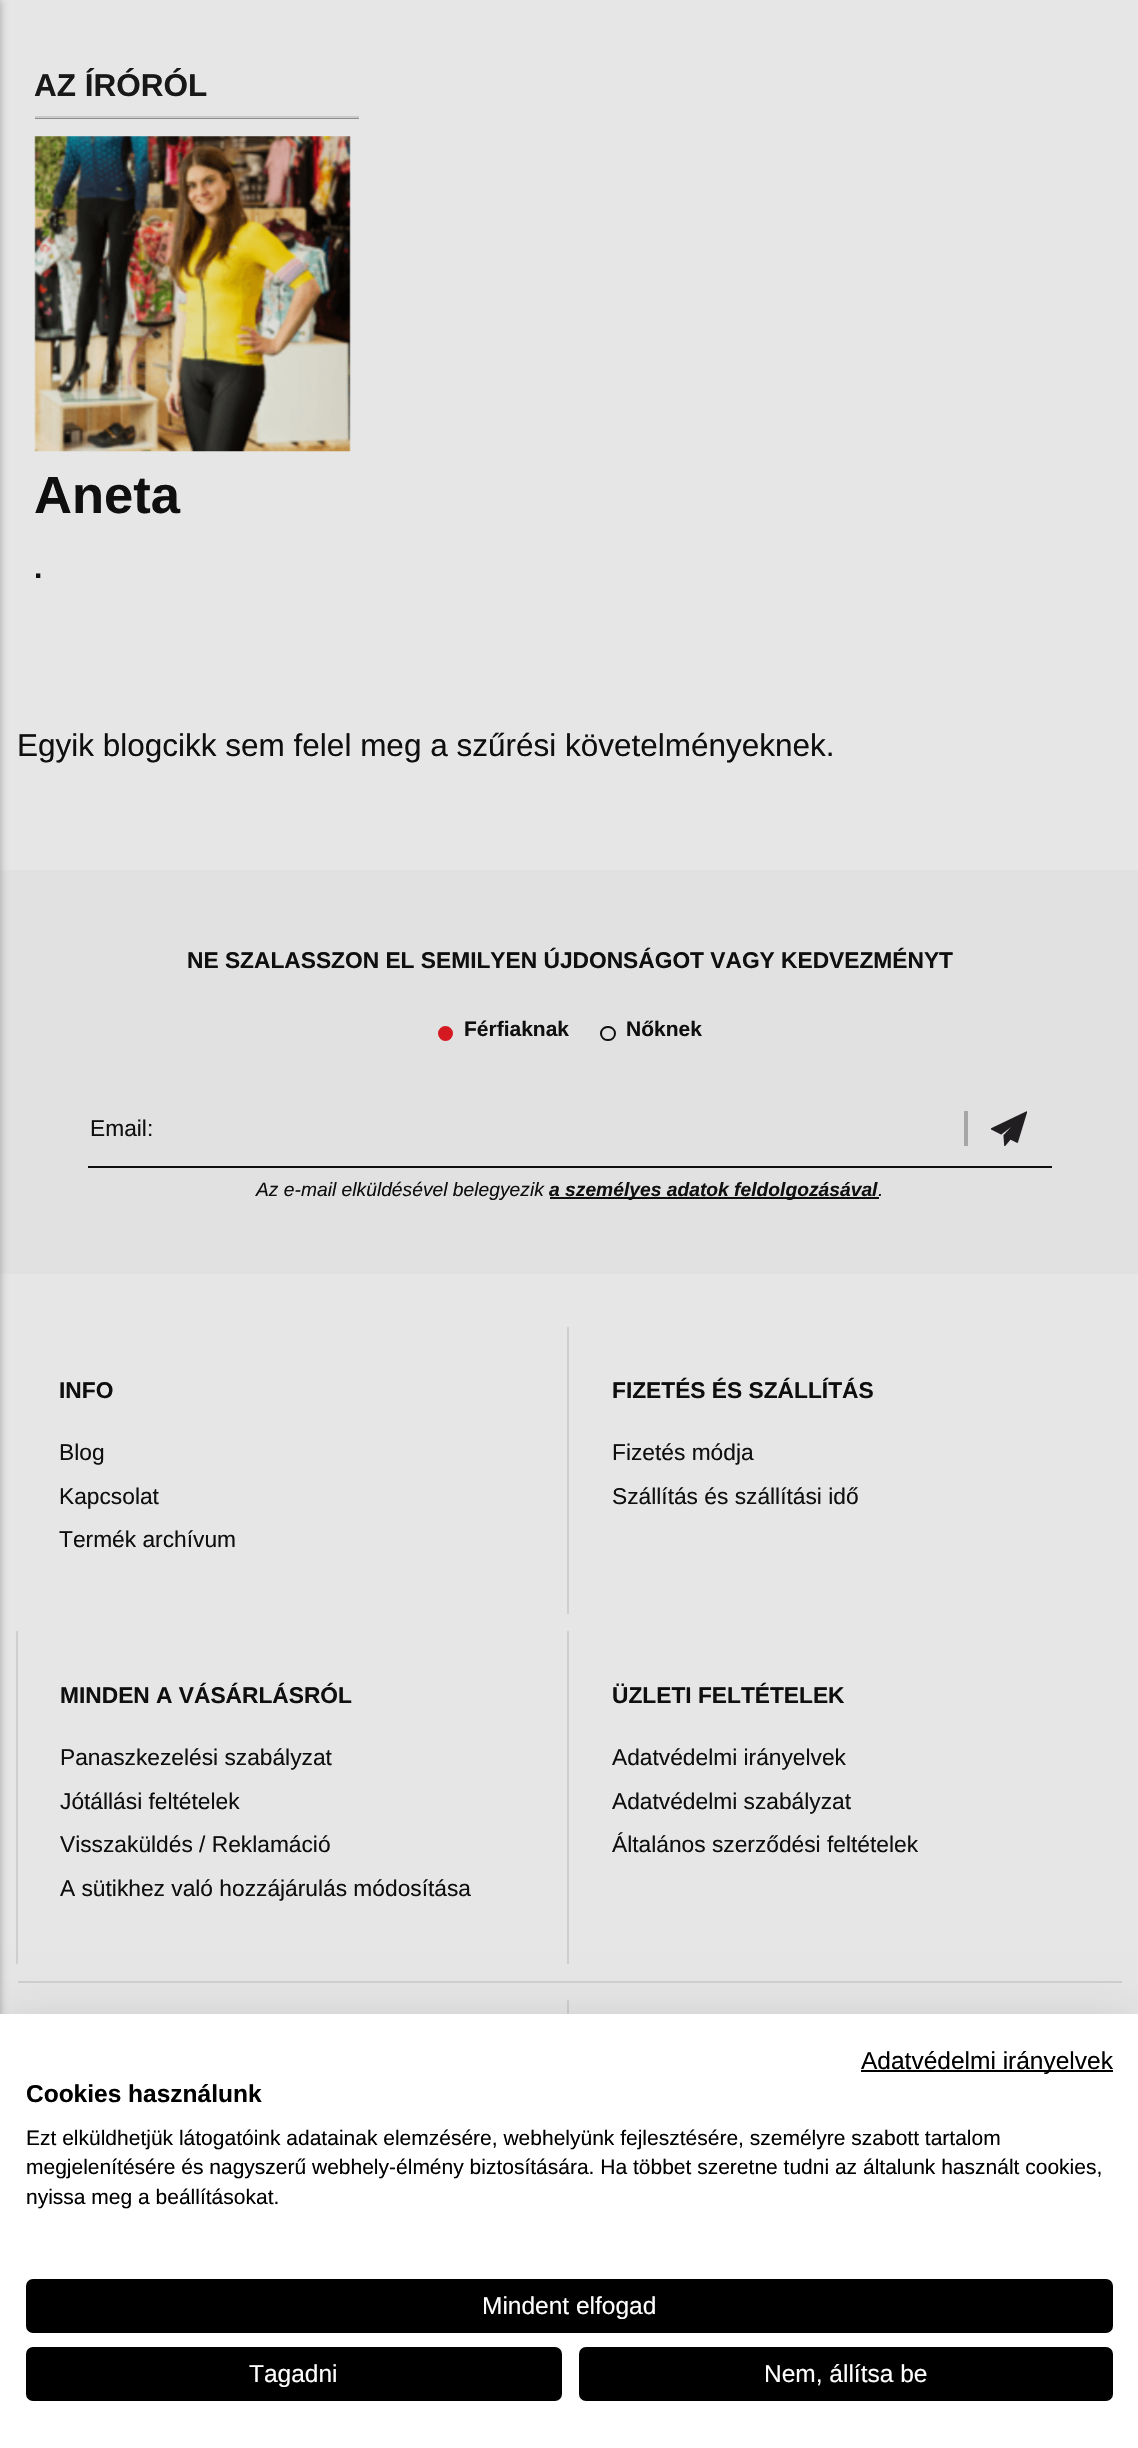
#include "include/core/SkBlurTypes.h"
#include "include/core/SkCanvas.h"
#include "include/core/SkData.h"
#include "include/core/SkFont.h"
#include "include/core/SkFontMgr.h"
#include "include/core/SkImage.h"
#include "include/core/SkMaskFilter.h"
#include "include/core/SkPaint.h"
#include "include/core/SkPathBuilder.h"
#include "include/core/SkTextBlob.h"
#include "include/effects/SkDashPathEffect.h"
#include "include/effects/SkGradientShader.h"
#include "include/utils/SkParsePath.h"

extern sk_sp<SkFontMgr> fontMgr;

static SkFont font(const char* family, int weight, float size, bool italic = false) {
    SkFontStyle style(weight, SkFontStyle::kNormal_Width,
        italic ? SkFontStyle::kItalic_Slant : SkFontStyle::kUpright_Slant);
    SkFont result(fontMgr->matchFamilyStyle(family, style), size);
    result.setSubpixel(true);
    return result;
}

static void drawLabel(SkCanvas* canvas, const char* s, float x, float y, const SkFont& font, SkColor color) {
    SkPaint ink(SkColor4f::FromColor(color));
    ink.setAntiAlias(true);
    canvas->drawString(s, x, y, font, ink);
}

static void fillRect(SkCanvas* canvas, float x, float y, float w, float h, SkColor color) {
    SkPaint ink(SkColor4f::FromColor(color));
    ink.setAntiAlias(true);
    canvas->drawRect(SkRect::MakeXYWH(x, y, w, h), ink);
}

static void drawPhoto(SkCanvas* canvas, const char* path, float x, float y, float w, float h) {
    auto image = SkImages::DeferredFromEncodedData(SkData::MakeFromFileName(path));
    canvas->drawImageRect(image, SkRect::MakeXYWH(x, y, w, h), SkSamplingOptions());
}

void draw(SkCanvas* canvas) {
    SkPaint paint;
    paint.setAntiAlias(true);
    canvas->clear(0xFFE6E6E6);
    fillRect(canvas, 0, 870, 1138, 404, 0xFFE1E1E1);
    paint.setColor(0x4D000000);
    paint.setMaskFilter(SkMaskFilter::MakeBlur(kNormal_SkBlurStyle, 4.5f));
    canvas->drawRect(SkRect::MakeXYWH(-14, 0, 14, 2448), paint);
    paint.setMaskFilter(nullptr);
    SkFont font1 = font("Liberation Sans", 700, 31.5f);
    drawLabel(canvas, "AZ ÍRÓRÓL", 34, 96, font1, 0xFF181818);
    fillRect(canvas, 35, 118, 324, 1, 0xFF8F8F8F);
    fillRect(canvas, 35, 116, 324, 2, 0xFFCACACA);
    drawPhoto(canvas, "assets/img1.png", 34, 136, 317, 316);
    SkFont font2 = font("Liberation Sans", 700, 52.5f);
    drawLabel(canvas, "Aneta", 34, 513, font2, 0xFF0F0F0F);
    SkFont font3 = font("Liberation Sans", 700, 30);
    drawLabel(canvas, ".", 34, 578, font3, 0xFF0F0F0F);
    SkFont font4 = font("Liberation Sans", 400, 31.5f);
    drawLabel(canvas, "Egyik blogcikk sem felel meg a szűrési követelményeknek.", 17, 756, font4, 0xFF0F0F0F);
    SkFont font5 = font("Liberation Sans", 700, 22.75f);
    drawLabel(canvas, "NE SZALASSZON EL SEMILYEN ÚJDONSÁGOT VAGY KEDVEZMÉNYT", 187, 968, font5, 0xFF0F0F0F);
    paint.setStroke(true);
    paint.setStrokeWidth(2);
    paint.setColor(0xFFD51920);
    canvas->drawCircle(445.5f, 1033.5f, 6.5f, paint);
    SkFont font6 = font("Liberation Sans", 700, 21);
    drawLabel(canvas, "Férfiaknak", 464, 1036, font6, 0xFF0F0F0F);
    paint.setStroke(false);
    canvas->drawCircle(445.5f, 1033.5f, 6.5f, paint);
    paint.setStroke(true);
    paint.setColor(0xFF0F0F0F);
    canvas->drawRoundRect(SkRect::MakeXYWH(601, 1027, 14, 13), 6.5f, 6.5f, paint);
    drawLabel(canvas, "Nőknek", 626, 1036, font6, 0xFF0F0F0F);
    SkFont font7 = font("Liberation Sans", 400, 22.75f);
    drawLabel(canvas, "Email:", 90, 1136, font7, 0xFF0F0F0F);
    drawPhoto(canvas, "assets/img2.png", 991, 1111, 36, 35);
    fillRect(canvas, 964, 1111, 4, 35, 0xFFA6A6A6);
    fillRect(canvas, 88, 1166, 964, 2, 0xFF0F0F0F);
    SkFont font8 = font("Liberation Sans", 400, 19.25f, true);
    drawLabel(canvas, "Az e-mail elküldésével belegyezik", 256, 1196, font8, 0xFF0F0F0F);
    fillRect(canvas, 550, 1197, 329, 2, 0xFF0F0F0F);
    SkFont font9 = font("Liberation Sans", 700, 19.25f, true);
    drawLabel(canvas, "a személyes adatok feldolgozásával", 549, 1196, font9, 0xFF0F0F0F);
    drawLabel(canvas, ".", 878, 1196, font8, 0xFF0F0F0F);
    drawLabel(canvas, "INFO", 59, 1398, font5, 0xFF0F0F0F);
    drawLabel(canvas, "Blog", 59, 1460, font7, 0xFF0F0F0F);
    drawLabel(canvas, "Kapcsolat", 59, 1504, font7, 0xFF0F0F0F);
    drawLabel(canvas, "Termék archívum", 59, 1547, font7, 0xFF0F0F0F);
    fillRect(canvas, 567, 1327, 2, 287, 0xFFCFCFD0);
    drawLabel(canvas, "FIZETÉS ÉS SZÁLLÍTÁS", 612, 1398, font5, 0xFF0F0F0F);
    drawLabel(canvas, "Fizetés módja", 612, 1460, font7, 0xFF0F0F0F);
    drawLabel(canvas, "Szállítás és szállítási idő", 612, 1504, font7, 0xFF0F0F0F);
    fillRect(canvas, 16, 1631, 2, 333, 0xFFCFCFD0);
    drawLabel(canvas, "MINDEN A VÁSÁRLÁSRÓL", 60, 1703, font5, 0xFF0F0F0F);
    drawLabel(canvas, "Panaszkezelési szabályzat", 60, 1765, font7, 0xFF0F0F0F);
    drawLabel(canvas, "Jótállási feltételek", 60, 1809, font7, 0xFF0F0F0F);
    drawLabel(canvas, "Visszaküldés / Reklamáció", 60, 1852, font7, 0xFF0F0F0F);
    drawLabel(canvas, "A sütikhez való hozzájárulás módosítása", 60, 1896, font7, 0xFF0F0F0F);
    fillRect(canvas, 567, 1631, 2, 333, 0xFFCFCFD0);
    drawLabel(canvas, "ÜZLETI FELTÉTELEK", 612, 1703, font5, 0xFF0F0F0F);
    drawLabel(canvas, "Adatvédelmi irányelvek", 612, 1765, font7, 0xFF0F0F0F);
    drawLabel(canvas, "Adatvédelmi szabályzat", 612, 1809, font7, 0xFF0F0F0F);
    drawLabel(canvas, "Általános szerződési feltételek", 612, 1852, font7, 0xFF0F0F0F);
    fillRect(canvas, 18, 1981, 1104, 2, 0xFFCFCFD0);
    fillRect(canvas, 567, 2000, 2, 14, 0xFFCFCFD0);
    paint.setStroke(false);
    paint.setColor(0x1A000000);
    paint.setMaskFilter(SkMaskFilter::MakeBlur(kNormal_SkBlurStyle, 21));
    canvas->drawRect(SkRect::MakeXYWH(0, 2014, 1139, 434), paint);
    paint.setMaskFilter(nullptr);
    fillRect(canvas, 0, 2014, 1138, 434, 0xFFFFFFFF);
    fillRect(canvas, 861, 2070, 252, 2, 0xFF000000);
    SkFont font10 = font("Liberation Sans", 400, 24.5f);
    drawLabel(canvas, "Adatvédelmi irányelvek", 861, 2069, font10, 0xFF000000);
    SkFont font11 = font("Liberation Sans", 700, 24.5f);
    drawLabel(canvas, "Cookies használunk", 26, 2102, font11, 0xFF000000);
    SkFont font12 = font("Liberation Sans", 400, 21);
    drawLabel(canvas, "Ezt elküldhetjük látogatóink adatainak elemzésére, webhelyünk fejlesztésére, személyre szabott tartalom", 26, 2145, font12, 0xFF000000);
    drawLabel(canvas, "megjelenítésére és nagyszerű webhely-élmény biztosítására. Ha többet szeretne tudni az általunk használt cookies,", 26, 2174, font12, 0xFF000000);
    drawLabel(canvas, "nyissa meg a beállításokat.", 26, 2204, font12, 0xFF000000);
    paint.setColor(0xFF000000);
    canvas->drawRoundRect(SkRect::MakeXYWH(27, 2280, 1085, 52), 6, 6, paint);
    paint.setStroke(true);
    canvas->drawRoundRect(SkRect::MakeXYWH(27, 2280, 1085, 52), 6, 6, paint);
    drawLabel(canvas, "Mindent elfogad", 482, 2314, font10, 0xFFFFFFFF);
    paint.setStroke(false);
    canvas->drawRoundRect(SkRect::MakeXYWH(27, 2348, 534, 52), 6, 6, paint);
    paint.setStroke(true);
    canvas->drawRoundRect(SkRect::MakeXYWH(27, 2348, 534, 52), 6, 6, paint);
    drawLabel(canvas, "Tagadni", 249, 2382, font10, 0xFFFFFFFF);
    paint.setStroke(false);
    canvas->drawRoundRect(SkRect::MakeXYWH(580, 2348, 532, 52), 6, 6, paint);
    paint.setStroke(true);
    canvas->drawRoundRect(SkRect::MakeXYWH(580, 2348, 532, 52), 6, 6, paint);
    drawLabel(canvas, "Nem, állítsa be", 764, 2382, font10, 0xFFFFFFFF);
}
